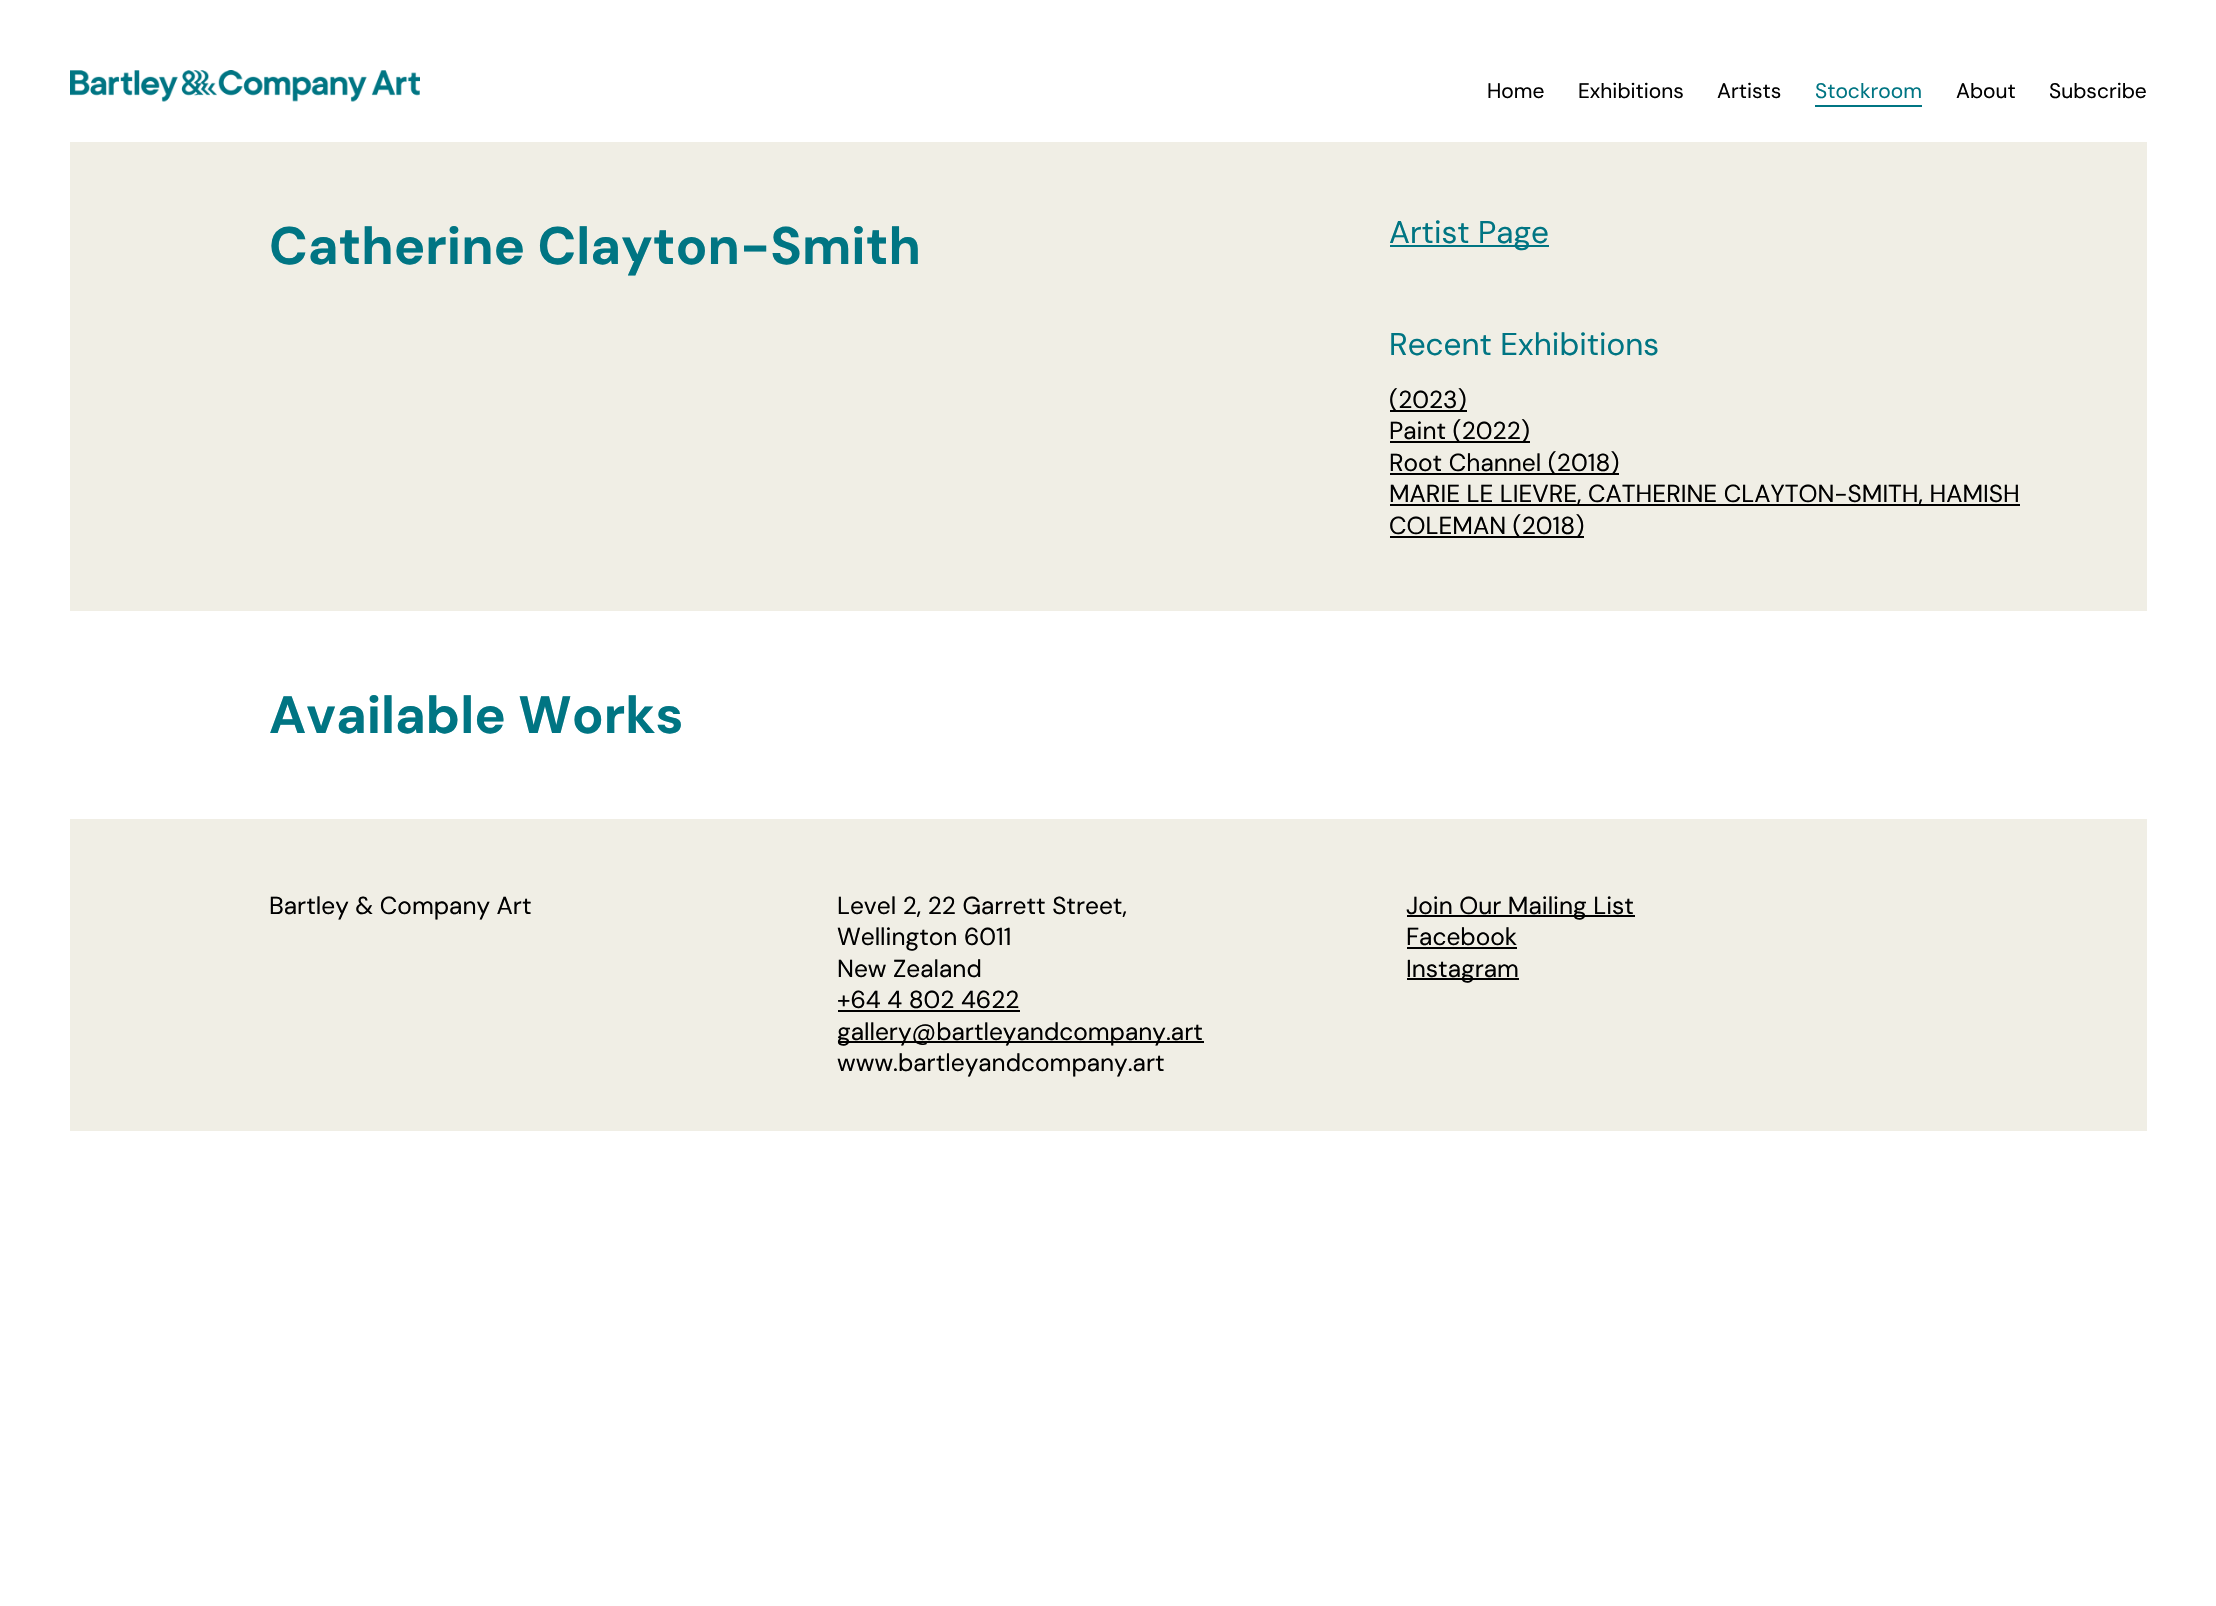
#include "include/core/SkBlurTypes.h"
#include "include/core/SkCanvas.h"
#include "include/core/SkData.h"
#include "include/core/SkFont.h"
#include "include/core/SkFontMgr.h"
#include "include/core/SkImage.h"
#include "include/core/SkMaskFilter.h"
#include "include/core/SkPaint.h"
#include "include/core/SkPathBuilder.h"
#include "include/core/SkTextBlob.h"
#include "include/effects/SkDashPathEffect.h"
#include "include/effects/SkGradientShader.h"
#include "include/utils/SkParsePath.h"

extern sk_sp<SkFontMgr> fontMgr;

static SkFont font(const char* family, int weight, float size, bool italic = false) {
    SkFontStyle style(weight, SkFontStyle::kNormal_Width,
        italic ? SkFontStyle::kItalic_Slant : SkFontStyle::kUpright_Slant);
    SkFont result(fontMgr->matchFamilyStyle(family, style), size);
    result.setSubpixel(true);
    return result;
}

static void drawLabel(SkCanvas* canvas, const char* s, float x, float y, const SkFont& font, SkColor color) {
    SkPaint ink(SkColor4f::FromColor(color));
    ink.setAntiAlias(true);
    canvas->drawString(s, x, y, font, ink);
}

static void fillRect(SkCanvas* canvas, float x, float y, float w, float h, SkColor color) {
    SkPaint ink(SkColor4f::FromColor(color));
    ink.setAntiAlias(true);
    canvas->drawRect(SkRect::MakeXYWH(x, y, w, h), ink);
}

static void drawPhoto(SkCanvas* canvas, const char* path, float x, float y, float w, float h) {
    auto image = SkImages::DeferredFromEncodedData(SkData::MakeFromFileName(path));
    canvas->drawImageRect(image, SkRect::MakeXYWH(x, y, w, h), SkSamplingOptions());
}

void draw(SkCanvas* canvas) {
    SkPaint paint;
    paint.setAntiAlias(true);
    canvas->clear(0xFFFFFFFF);
    drawPhoto(canvas, "assets/img1.png", 70, 70, 350, 32);
    SkFont font1 = font("DM Sans", 400, 21);
    drawLabel(canvas, "Home", 1487, 98, font1, 0xFF000000);
    drawLabel(canvas, "Exhibitions", 1578, 98, font1, 0xFF000000);
    drawLabel(canvas, "Artists", 1717, 98, font1, 0xFF000000);
    drawLabel(canvas, "Stockroom", 1815, 98, font1, 0xFF007583);
    fillRect(canvas, 1815, 105, 107, 2, 0xFF007583);
    drawLabel(canvas, "About", 1956, 98, font1, 0xFF000000);
    drawLabel(canvas, "Subscribe", 2049, 98, font1, 0xFF000000);
    fillRect(canvas, 70, 142, 2077, 469, 0xFFF0EEE5);
    SkFont font2 = font("DM Sans", 700, 52.5f);
    drawLabel(canvas, "Catherine Clayton-Smith", 269, 264, font2, 0xFF007583);
    fillRect(canvas, 1390, 245, 159, 2, 0xFF007583);
    SkFont font3 = font("DM Sans", 400, 31.5f);
    drawLabel(canvas, "Artist Page", 1389, 243, font3, 0xFF007583);
    drawLabel(canvas, "Recent Exhibitions", 1389, 355, font3, 0xFF007583);
    fillRect(canvas, 1390, 410, 77, 2, 0xFF000000);
    SkFont font4 = font("DM Sans", 400, 24.5f);
    drawLabel(canvas, "(2023)", 1389, 408, font4, 0xFF000000);
    fillRect(canvas, 1390, 441, 140, 2, 0xFF000000);
    drawLabel(canvas, "Paint (2022)", 1389, 439, font4, 0xFF000000);
    fillRect(canvas, 1390, 473, 229, 2, 0xFF000000);
    drawLabel(canvas, "Root Channel (2018)", 1389, 471, font4, 0xFF000000);
    fillRect(canvas, 1390, 504, 630, 2, 0xFF000000);
    drawLabel(canvas, "MARIE LE LIEVRE, CATHERINE CLAYTON-SMITH, HAMISH", 1389, 502, font4, 0xFF000000);
    fillRect(canvas, 1390, 536, 194, 2, 0xFF000000);
    drawLabel(canvas, "COLEMAN (2018)", 1389, 534, font4, 0xFF000000);
    drawLabel(canvas, "Available Works", 269, 733, font2, 0xFF007583);
    fillRect(canvas, 70, 819, 2077, 312, 0xFFF0EEE5);
    drawLabel(canvas, "Bartley & Company Art", 269, 914, font4, 0xFF000000);
    drawLabel(canvas, "Level 2, 22 Garrett Street,", 837, 914, font4, 0xFF000000);
    drawLabel(canvas, "Wellington 6011", 837, 945, font4, 0xFF000000);
    drawLabel(canvas, "New Zealand", 837, 977, font4, 0xFF000000);
    drawLabel(canvas, "+64 4 802 4622", 837, 1008, font4, 0xFF000000);
    fillRect(canvas, 838, 1010, 182, 2, 0xFF000000);
    fillRect(canvas, 838, 1041, 366, 2, 0xFF000000);
    drawLabel(canvas, "gallery@bartleyandcompany.art", 837, 1040, font4, 0xFF000000);
    drawLabel(canvas, "www.bartleyandcompany.art", 837, 1071, font4, 0xFF000000);
    fillRect(canvas, 1407, 915, 228, 2, 0xFF000000);
    drawLabel(canvas, "Join Our Mailing List", 1406, 914, font4, 0xFF000000);
    drawLabel(canvas, "Facebook", 1406, 945, font4, 0xFF000000);
    fillRect(canvas, 1407, 947, 110, 2, 0xFF000000);
    fillRect(canvas, 1407, 978, 112, 2, 0xFF000000);
    drawLabel(canvas, "Instagram", 1406, 977, font4, 0xFF000000);
}
